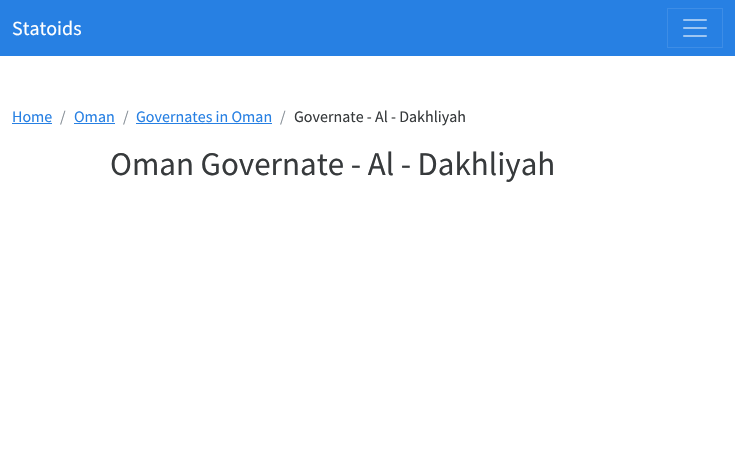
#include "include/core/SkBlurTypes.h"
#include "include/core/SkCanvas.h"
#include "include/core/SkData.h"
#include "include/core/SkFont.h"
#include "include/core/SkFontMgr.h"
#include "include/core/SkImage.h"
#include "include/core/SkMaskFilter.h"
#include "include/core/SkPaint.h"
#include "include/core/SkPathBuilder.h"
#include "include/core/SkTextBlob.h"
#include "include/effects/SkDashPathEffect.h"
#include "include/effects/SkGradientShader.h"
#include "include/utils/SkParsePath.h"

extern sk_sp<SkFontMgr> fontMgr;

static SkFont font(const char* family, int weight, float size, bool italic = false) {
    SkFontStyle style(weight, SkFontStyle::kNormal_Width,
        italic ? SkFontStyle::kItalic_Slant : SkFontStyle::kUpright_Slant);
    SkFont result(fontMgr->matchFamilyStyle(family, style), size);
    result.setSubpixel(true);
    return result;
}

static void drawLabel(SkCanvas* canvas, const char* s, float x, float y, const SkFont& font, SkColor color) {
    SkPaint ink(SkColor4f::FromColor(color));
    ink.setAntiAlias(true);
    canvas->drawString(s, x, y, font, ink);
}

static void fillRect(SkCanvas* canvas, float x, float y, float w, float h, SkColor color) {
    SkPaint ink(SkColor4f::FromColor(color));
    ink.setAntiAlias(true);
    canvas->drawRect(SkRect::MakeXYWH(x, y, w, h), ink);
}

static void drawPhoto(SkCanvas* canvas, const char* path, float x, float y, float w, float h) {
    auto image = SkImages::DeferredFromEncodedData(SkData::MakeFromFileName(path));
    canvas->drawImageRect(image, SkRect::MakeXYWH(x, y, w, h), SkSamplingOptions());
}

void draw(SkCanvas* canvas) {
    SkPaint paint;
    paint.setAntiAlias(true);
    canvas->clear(0xFFFFFFFF);
    fillRect(canvas, 0, 0, 735, 56, 0xFF2780E3);
    SkFont font1 = font("Source Sans Pro", 400, 20);
    drawLabel(canvas, "Statoids", 12, 35, font1, 0xFFFFFFFF);
    paint.setStroke(true);
    paint.setStrokeWidth(1);
    paint.setColor(0xFF3D8DE6);
    canvas->drawRect(SkRect::MakeXYWH(667.5f, 8.5f, 55, 39), paint);
    drawPhoto(canvas, "assets/img1.png", 683, 19, 24, 18);
    SkFont font2 = font("Source Sans Pro", 400, 16);
    drawLabel(canvas, "Home", 12, 122, font2, 0xFF2780E3);
    fillRect(canvas, 12, 123, 40, 1, 0xFF2780E3);
    drawLabel(canvas, "/", 60, 122, font2, 0xFF868E96);
    drawLabel(canvas, "Oman", 74, 122, font2, 0xFF2780E3);
    fillRect(canvas, 74, 123, 41, 1, 0xFF2780E3);
    drawLabel(canvas, "/", 123, 122, font2, 0xFF868E96);
    drawLabel(canvas, "Governates in Oman", 136, 122, font2, 0xFF2780E3);
    fillRect(canvas, 136, 123, 136, 1, 0xFF2780E3);
    drawLabel(canvas, "/", 280, 122, font2, 0xFF868E96);
    drawLabel(canvas, "Governate - Al - Dakhliyah", 294, 122, font2, 0xFF373A3C);
    SkFont font3 = font("Source Sans Pro", 400, 33);
    drawLabel(canvas, "Oman Governate - Al - Dakhliyah", 110, 175, font3, 0xFF373A3C);
}
